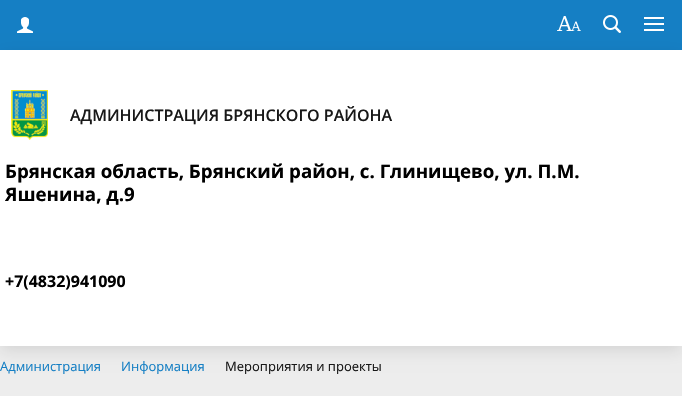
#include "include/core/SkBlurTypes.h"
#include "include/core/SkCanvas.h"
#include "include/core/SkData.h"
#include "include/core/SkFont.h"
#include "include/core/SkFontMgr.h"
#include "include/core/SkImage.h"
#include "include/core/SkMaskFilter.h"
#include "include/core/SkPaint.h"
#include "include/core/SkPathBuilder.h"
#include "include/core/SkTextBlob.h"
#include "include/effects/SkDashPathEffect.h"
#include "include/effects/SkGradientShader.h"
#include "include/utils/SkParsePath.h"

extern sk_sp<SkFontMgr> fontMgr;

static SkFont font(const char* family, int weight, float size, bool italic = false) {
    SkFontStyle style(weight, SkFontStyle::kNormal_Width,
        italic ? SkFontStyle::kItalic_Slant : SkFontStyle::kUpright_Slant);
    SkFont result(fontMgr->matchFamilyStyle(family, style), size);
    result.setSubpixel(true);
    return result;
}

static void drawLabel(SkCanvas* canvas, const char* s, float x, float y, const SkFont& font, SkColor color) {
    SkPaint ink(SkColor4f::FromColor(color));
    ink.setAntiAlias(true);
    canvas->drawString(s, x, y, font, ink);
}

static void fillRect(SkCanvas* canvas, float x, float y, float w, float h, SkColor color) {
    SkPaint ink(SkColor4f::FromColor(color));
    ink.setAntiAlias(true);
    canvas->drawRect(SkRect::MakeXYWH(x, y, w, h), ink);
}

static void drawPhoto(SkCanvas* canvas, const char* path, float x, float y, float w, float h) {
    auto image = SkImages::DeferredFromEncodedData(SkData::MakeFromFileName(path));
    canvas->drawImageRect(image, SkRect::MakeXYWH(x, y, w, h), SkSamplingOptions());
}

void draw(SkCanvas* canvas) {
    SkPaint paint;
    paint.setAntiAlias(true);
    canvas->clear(0xFFEDEDED);
    fillRect(canvas, 0, 0, 682, 50, 0xFF157FC4);
    fillRect(canvas, 644, 23, 20, 2, 0xFFFFFFFF);
    fillRect(canvas, 644, 17, 20, 2, 0xFFFFFFFF);
    fillRect(canvas, 644, 29, 20, 2, 0xFFFFFFFF);
    paint.setColor(0x1A000000);
    paint.setMaskFilter(SkMaskFilter::MakeBlur(kNormal_SkBlurStyle, 7.5f));
    canvas->drawRect(SkRect::MakeXYWH(0, 55, 682, 296), paint);
    paint.setMaskFilter(nullptr);
    drawPhoto(canvas, "assets/img1.png", 17, 17, 16, 16);
    drawPhoto(canvas, "assets/img2.png", 557, 16, 24, 15);
    drawPhoto(canvas, "assets/img3.png", 603, 15, 18, 18);
    fillRect(canvas, 0, 50, 682, 296, 0xFFFFFFFF);
    drawPhoto(canvas, "assets/img4.png", 11, 90, 37, 50);
    SkFont font1 = font("Open Sans", 600, 16);
    drawLabel(canvas, "АДМИНИСТРАЦИЯ БРЯНСКОГО РАЙОНА", 70, 121, font1, 0xFF181818);
    SkFont font2 = font("Open Sans", 700, 18.7f);
    drawLabel(canvas, "Брянская область, Брянский район, с. Глинищево, ул. П.М.", 5, 178, font2, 0xFF000000);
    drawLabel(canvas, "Яшенина, д.9", 5, 201, font2, 0xFF000000);
    SkFont font3 = font("Open Sans", 700, 16);
    drawLabel(canvas, "+7(4832)941090", 5, 287, font3, 0xFF000000);
    SkFont font4 = font("Open Sans", 400, 13);
    drawLabel(canvas, "Администрация", 0, 371, font4, 0xFF157FC4);
    drawLabel(canvas, "Информация", 121, 371, font4, 0xFF157FC4);
    drawLabel(canvas, "Мероприятия и проекты", 225, 371, font4, 0xFF181818);
}
